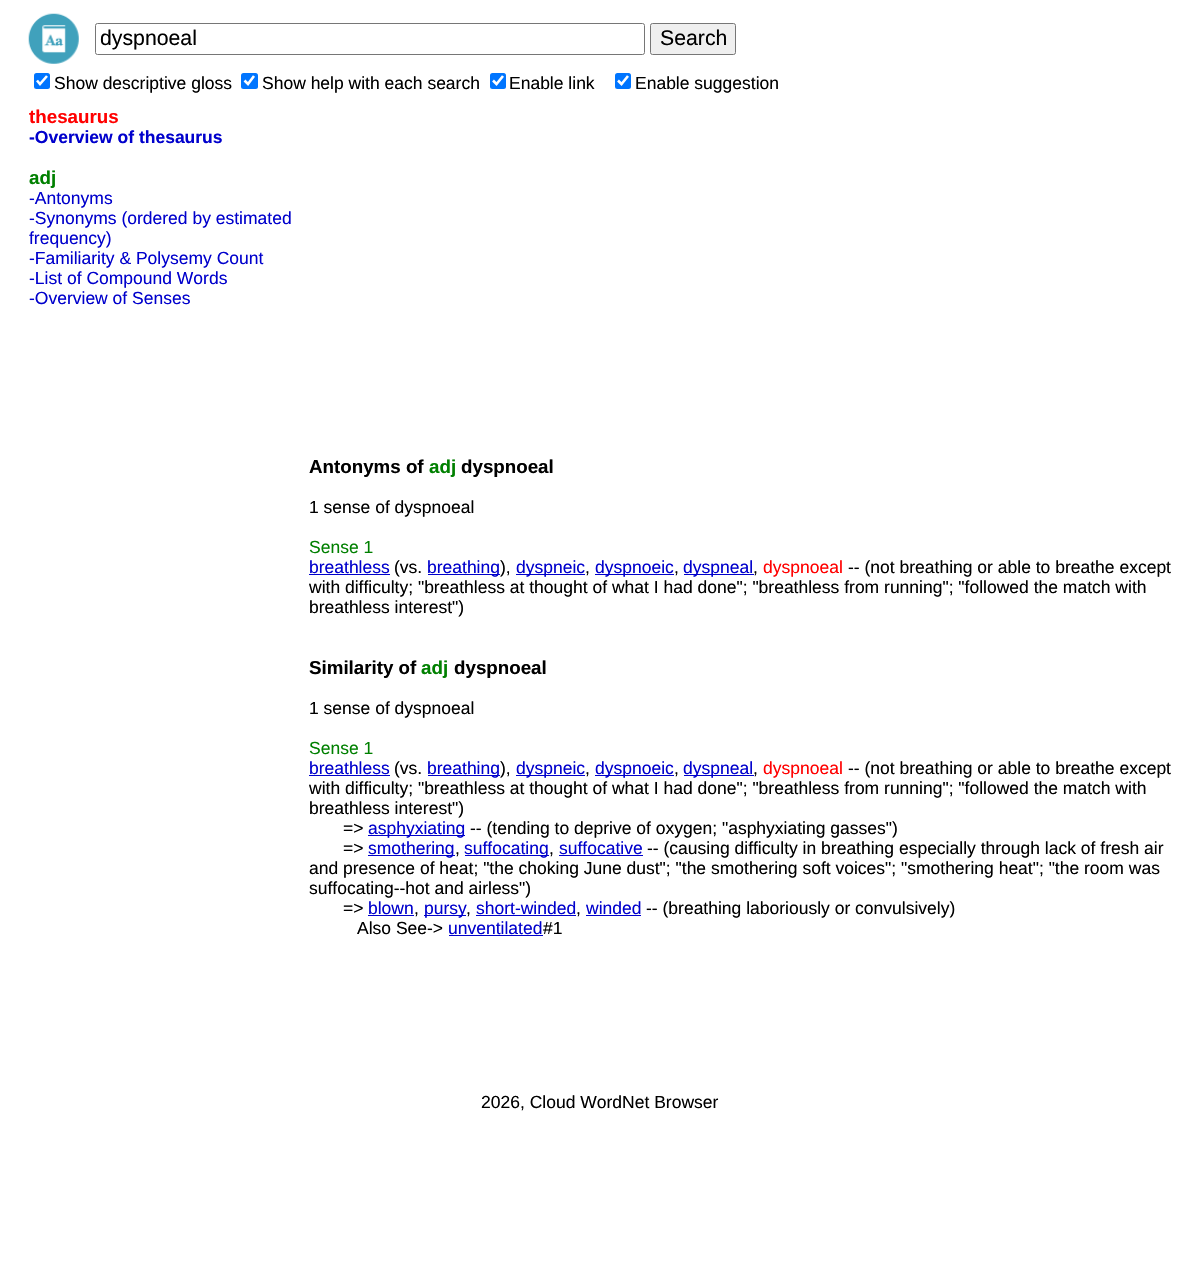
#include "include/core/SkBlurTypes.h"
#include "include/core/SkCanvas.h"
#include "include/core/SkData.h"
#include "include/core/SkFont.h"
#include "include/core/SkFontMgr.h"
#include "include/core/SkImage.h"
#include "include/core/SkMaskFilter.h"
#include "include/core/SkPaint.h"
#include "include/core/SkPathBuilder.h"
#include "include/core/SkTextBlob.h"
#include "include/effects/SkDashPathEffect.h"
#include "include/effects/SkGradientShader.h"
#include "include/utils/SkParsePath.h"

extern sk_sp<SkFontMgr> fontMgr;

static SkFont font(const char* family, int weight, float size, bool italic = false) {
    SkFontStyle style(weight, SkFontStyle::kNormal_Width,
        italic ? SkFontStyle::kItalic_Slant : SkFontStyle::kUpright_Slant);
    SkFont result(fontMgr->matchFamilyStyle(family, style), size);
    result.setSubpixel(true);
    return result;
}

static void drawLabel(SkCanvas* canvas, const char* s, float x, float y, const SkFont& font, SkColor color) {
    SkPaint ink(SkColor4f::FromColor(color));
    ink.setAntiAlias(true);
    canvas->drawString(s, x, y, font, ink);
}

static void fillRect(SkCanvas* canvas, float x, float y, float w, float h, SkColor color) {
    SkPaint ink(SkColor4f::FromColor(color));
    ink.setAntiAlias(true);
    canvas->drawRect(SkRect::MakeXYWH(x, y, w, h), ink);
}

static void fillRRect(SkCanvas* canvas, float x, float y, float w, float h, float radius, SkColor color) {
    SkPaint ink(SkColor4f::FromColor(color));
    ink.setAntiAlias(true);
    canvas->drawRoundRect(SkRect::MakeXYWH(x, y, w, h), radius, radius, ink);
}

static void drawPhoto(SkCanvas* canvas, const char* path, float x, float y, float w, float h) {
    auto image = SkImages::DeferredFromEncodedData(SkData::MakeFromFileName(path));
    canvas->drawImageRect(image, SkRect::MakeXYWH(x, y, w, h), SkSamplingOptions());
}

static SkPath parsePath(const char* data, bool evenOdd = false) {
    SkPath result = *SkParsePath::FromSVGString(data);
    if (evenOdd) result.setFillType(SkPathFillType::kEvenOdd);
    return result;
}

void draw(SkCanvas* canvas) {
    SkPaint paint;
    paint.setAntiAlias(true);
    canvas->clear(0xFFFFFFFF);
    drawPhoto(canvas, "assets/img1.png", 28, 13, 51, 51);
    paint.setStroke(true);
    paint.setStrokeWidth(1);
    paint.setColor(0xFF767676);
    canvas->drawRoundRect(SkRect::MakeXYWH(95.5f, 23.5f, 549, 31), 2, 2, paint);
    SkFont font1 = font("Liberation Sans", 400, 21.25f);
    drawLabel(canvas, "dyspnoeal", 100, 45, font1, 0xFF000000);
    paint.setStroke(false);
    paint.setColor(0xFFEFEFEF);
    canvas->drawRoundRect(SkRect::MakeXYWH(650.5f, 23.5f, 85, 31), 2, 2, paint);
    paint.setStroke(true);
    paint.setColor(0xFF767676);
    canvas->drawRoundRect(SkRect::MakeXYWH(650.5f, 23.5f, 85, 31), 2, 2, paint);
    drawLabel(canvas, "Search", 660, 45, font1, 0xFF000000);
    fillRRect(canvas, 34, 73, 16, 16, 2.5f, 0xFF0075FF);
    paint.setStrokeWidth(2.6f);
    paint.setColor(0xFFFFFFFF);
    canvas->drawPath(parsePath("M37 80.5L40 84L47 76"), paint);
    SkFont font2 = font("Liberation Sans", 400, 17.5f);
    drawLabel(canvas, "Show descriptive gloss", 54, 89, font2, 0xFF000000);
    fillRRect(canvas, 241, 73, 17, 16, 2.5f, 0xFF0075FF);
    canvas->drawPath(parsePath("M244.5 80.5L248 84L254 76"), paint);
    drawLabel(canvas, "Show help with each search", 262, 89, font2, 0xFF000000);
    fillRRect(canvas, 490, 73, 16, 16, 2.5f, 0xFF0075FF);
    canvas->drawPath(parsePath("M493 80.5L496.5 84L503 76"), paint);
    drawLabel(canvas, "Enable link", 509, 89, font2, 0xFF000000);
    fillRRect(canvas, 615, 73, 16, 16, 2.5f, 0xFF0075FF);
    canvas->drawPath(parsePath("M618 80.5L621.5 84L628 76"), paint);
    drawLabel(canvas, "Enable suggestion", 635, 89, font2, 0xFF000000);
    SkFont font3 = font("Liberation Sans", 700, 18.75f);
    drawLabel(canvas, "thesaurus", 29, 123, font3, 0xFFFF0000);
    SkFont font4 = font("Liberation Sans", 700, 17.5f);
    drawLabel(canvas, "-Overview of thesaurus", 29, 143, font4, 0xFF0000CC);
    drawLabel(canvas, "adj", 29, 184, font3, 0xFF008000);
    drawLabel(canvas, "-Antonyms", 29, 204, font2, 0xFF0000CC);
    drawLabel(canvas, "-Synonyms (ordered by estimated", 29, 224, font2, 0xFF0000CC);
    drawLabel(canvas, "frequency)", 29, 244, font2, 0xFF0000CC);
    drawLabel(canvas, "-Familiarity & Polysemy Count", 29, 264, font2, 0xFF0000CC);
    drawLabel(canvas, "-List of Compound Words", 29, 284, font2, 0xFF0000CC);
    drawLabel(canvas, "-Overview of Senses", 29, 304, font2, 0xFF0000CC);
    drawLabel(canvas, "Antonyms of", 309, 473, font3, 0xFF000000);
    drawLabel(canvas, "adj", 429, 473, font3, 0xFF008000);
    drawLabel(canvas, "dyspnoeal", 461, 473, font3, 0xFF000000);
    drawLabel(canvas, "1 sense of dyspnoeal", 309, 513, font2, 0xFF000000);
    drawLabel(canvas, "Sense 1", 309, 553, font2, 0xFF008000);
    drawLabel(canvas, "breathless", 309, 573, font2, 0xFF0000CC);
    fillRect(canvas, 309, 574, 81, 1, 0xFF0000CC);
    drawLabel(canvas, "(vs.", 394, 573, font2, 0xFF000000);
    fillRect(canvas, 428, 574, 72, 1, 0xFF0000CC);
    drawLabel(canvas, "breathing", 427, 573, font2, 0xFF0000CC);
    drawLabel(canvas, "),", 500, 573, font2, 0xFF000000);
    fillRect(canvas, 516, 574, 69, 1, 0xFF0000CC);
    drawLabel(canvas, "dyspneic", 516, 573, font2, 0xFF0000CC);
    drawLabel(canvas, ",", 585, 573, font2, 0xFF000000);
    fillRect(canvas, 595, 574, 79, 1, 0xFF0000CC);
    drawLabel(canvas, "dyspnoeic", 595, 573, font2, 0xFF0000CC);
    drawLabel(canvas, ",", 674, 573, font2, 0xFF000000);
    fillRect(canvas, 684, 574, 70, 1, 0xFF0000CC);
    drawLabel(canvas, "dyspneal", 683, 573, font2, 0xFF0000CC);
    drawLabel(canvas, ",", 753, 573, font2, 0xFF000000);
    drawLabel(canvas, "dyspnoeal", 763, 573, font2, 0xFFFF0000);
    drawLabel(canvas, "-- (not breathing or able to breathe except", 848, 573, font2, 0xFF000000);
    drawLabel(canvas, "with difficulty; \"breathless at thought of what I had done\"; \"breathless from running\"; \"followed the match with", 309, 593, font2, 0xFF000000);
    drawLabel(canvas, "breathless interest\")", 309, 613, font2, 0xFF000000);
    drawLabel(canvas, "Similarity of", 309, 674, font3, 0xFF000000);
    drawLabel(canvas, "adj", 421, 674, font3, 0xFF008000);
    drawLabel(canvas, "dyspnoeal", 454, 674, font3, 0xFF000000);
    drawLabel(canvas, "1 sense of dyspnoeal", 309, 714, font2, 0xFF000000);
    drawLabel(canvas, "Sense 1", 309, 754, font2, 0xFF008000);
    drawLabel(canvas, "breathless", 309, 774, font2, 0xFF0000CC);
    fillRect(canvas, 309, 775, 81, 1, 0xFF0000CC);
    drawLabel(canvas, "(vs.", 394, 774, font2, 0xFF000000);
    fillRect(canvas, 428, 775, 72, 1, 0xFF0000CC);
    drawLabel(canvas, "breathing", 427, 774, font2, 0xFF0000CC);
    drawLabel(canvas, "),", 500, 774, font2, 0xFF000000);
    fillRect(canvas, 516, 775, 69, 1, 0xFF0000CC);
    drawLabel(canvas, "dyspneic", 516, 774, font2, 0xFF0000CC);
    drawLabel(canvas, ",", 585, 774, font2, 0xFF000000);
    fillRect(canvas, 595, 775, 79, 1, 0xFF0000CC);
    drawLabel(canvas, "dyspnoeic", 595, 774, font2, 0xFF0000CC);
    drawLabel(canvas, ",", 674, 774, font2, 0xFF000000);
    fillRect(canvas, 684, 775, 70, 1, 0xFF0000CC);
    drawLabel(canvas, "dyspneal", 683, 774, font2, 0xFF0000CC);
    drawLabel(canvas, ",", 753, 774, font2, 0xFF000000);
    drawLabel(canvas, "dyspnoeal", 763, 774, font2, 0xFFFF0000);
    drawLabel(canvas, "-- (not breathing or able to breathe except", 848, 774, font2, 0xFF000000);
    drawLabel(canvas, "with difficulty; \"breathless at thought of what I had done\"; \"breathless from running\"; \"followed the match with", 309, 794, font2, 0xFF000000);
    drawLabel(canvas, "breathless interest\")", 309, 814, font2, 0xFF000000);
    drawLabel(canvas, "=>", 343, 834, font2, 0xFF000000);
    fillRect(canvas, 368, 835, 97, 1, 0xFF0000CC);
    drawLabel(canvas, "asphyxiating", 368, 834, font2, 0xFF0000CC);
    drawLabel(canvas, "-- (tending to deprive of oxygen; \"asphyxiating gasses\")", 470, 834, font2, 0xFF000000);
    drawLabel(canvas, "=>", 343, 854, font2, 0xFF000000);
    fillRect(canvas, 368, 855, 87, 1, 0xFF0000CC);
    drawLabel(canvas, "smothering", 368, 854, font2, 0xFF0000CC);
    fillRect(canvas, 465, 855, 84, 1, 0xFF0000CC);
    drawLabel(canvas, "suffocating", 464, 854, font2, 0xFF0000CC);
    drawLabel(canvas, "suffocative", 559, 854, font2, 0xFF0000CC);
    fillRect(canvas, 559, 855, 84, 1, 0xFF0000CC);
    drawLabel(canvas, "-- (causing difficulty in breathing especially through lack of fresh air", 647, 854, font2, 0xFF000000);
    drawLabel(canvas, ",", 455, 854, font2, 0xFF000000);
    drawLabel(canvas, ",", 549, 854, font2, 0xFF000000);
    drawLabel(canvas, "and presence of heat; \"the choking June dust\"; \"the smothering soft voices\"; \"smothering heat\"; \"the room was", 309, 874, font2, 0xFF000000);
    drawLabel(canvas, "suffocating--hot and airless\")", 309, 894, font2, 0xFF000000);
    drawLabel(canvas, "=>", 343, 914, font2, 0xFF000000);
    drawLabel(canvas, "blown", 368, 914, font2, 0xFF0000CC);
    fillRect(canvas, 368, 915, 46, 1, 0xFF0000CC);
    drawLabel(canvas, ",", 414, 914, font2, 0xFF000000);
    fillRect(canvas, 424, 915, 42, 1, 0xFF0000CC);
    drawLabel(canvas, "pursy", 424, 914, font2, 0xFF0000CC);
    drawLabel(canvas, ",", 466, 914, font2, 0xFF000000);
    drawLabel(canvas, "short-winded", 476, 914, font2, 0xFF0000CC);
    fillRect(canvas, 476, 915, 100, 1, 0xFF0000CC);
    drawLabel(canvas, ",", 576, 914, font2, 0xFF000000);
    drawLabel(canvas, "winded", 586, 914, font2, 0xFF0000CC);
    fillRect(canvas, 586, 915, 55, 1, 0xFF0000CC);
    drawLabel(canvas, "-- (breathing laboriously or convulsively)", 646, 914, font2, 0xFF000000);
    drawLabel(canvas, "Also See->", 357, 934, font2, 0xFF000000);
    drawLabel(canvas, "unventilated", 448, 934, font2, 0xFF0000CC);
    fillRect(canvas, 449, 935, 94, 1, 0xFF0000CC);
    drawLabel(canvas, "#1", 543, 934, font2, 0xFF000000);
    drawLabel(canvas, "2026, Cloud WordNet Browser", 481, 1108, font2, 0xFF000000);
}
